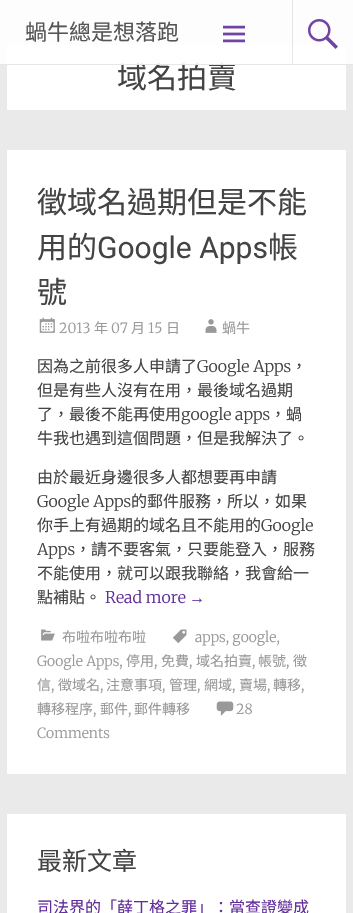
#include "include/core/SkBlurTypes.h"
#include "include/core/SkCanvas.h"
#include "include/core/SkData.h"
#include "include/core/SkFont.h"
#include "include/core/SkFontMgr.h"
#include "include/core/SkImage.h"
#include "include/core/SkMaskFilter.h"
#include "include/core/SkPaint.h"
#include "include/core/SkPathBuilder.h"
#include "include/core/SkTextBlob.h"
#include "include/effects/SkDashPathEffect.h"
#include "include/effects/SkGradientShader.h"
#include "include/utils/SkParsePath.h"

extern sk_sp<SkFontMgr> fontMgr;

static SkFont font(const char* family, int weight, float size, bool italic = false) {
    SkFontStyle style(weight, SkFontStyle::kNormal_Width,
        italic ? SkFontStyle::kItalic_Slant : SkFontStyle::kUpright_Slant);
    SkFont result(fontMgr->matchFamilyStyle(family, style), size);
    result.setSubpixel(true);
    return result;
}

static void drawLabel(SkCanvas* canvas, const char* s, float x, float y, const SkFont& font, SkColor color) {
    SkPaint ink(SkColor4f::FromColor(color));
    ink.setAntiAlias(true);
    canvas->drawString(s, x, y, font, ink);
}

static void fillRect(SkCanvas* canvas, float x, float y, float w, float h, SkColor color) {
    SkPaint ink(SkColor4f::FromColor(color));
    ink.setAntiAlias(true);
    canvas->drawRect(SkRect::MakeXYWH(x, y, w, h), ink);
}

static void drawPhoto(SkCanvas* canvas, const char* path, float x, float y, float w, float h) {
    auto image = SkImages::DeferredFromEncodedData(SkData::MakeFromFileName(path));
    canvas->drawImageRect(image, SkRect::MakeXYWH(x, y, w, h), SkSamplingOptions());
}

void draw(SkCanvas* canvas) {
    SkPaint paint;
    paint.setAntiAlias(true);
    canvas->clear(0xFFEAEAEA);
    fillRect(canvas, 7, 45, 339, 65, 0xFFFFFFFF);
    SkFont font1 = font("Noto Sans CJK TC", 400, 30);
    drawLabel(canvas, "域名拍賣", 117, 88, font1, 0xFF444444);
    fillRect(canvas, 0, 0, 353, 65, 0xE6FFFFFF);
    fillRect(canvas, 0, 64, 353, 1, 0xE6E1E4E6);
    SkFont font2 = font("Noto Sans CJK TC", 400, 22);
    drawLabel(canvas, "蝸牛總是想落跑", 25, 40, font2, 0xFF555555);
    drawPhoto(canvas, "assets/img1.png", 223, 25, 22, 18);
    fillRect(canvas, 292, 0, 1, 64, 0xFFE4E7E8);
    drawPhoto(canvas, "assets/img2.png", 308, 19, 30, 30);
    fillRect(canvas, 7, 150, 339, 624, 0xFFFFFFFF);
    drawLabel(canvas, "徵域名過期但是不能", 37, 213, font1, 0xFF444444);
    drawLabel(canvas, "用的", 37, 258, font1, 0xFF444444);
    SkFont font3 = font("Roboto", 400, 30);
    drawLabel(canvas, "Google Apps", 97, 258, font3, 0xFF444444);
    drawLabel(canvas, "帳", 268, 258, font1, 0xFF444444);
    drawLabel(canvas, "號", 37, 303, font1, 0xFF444444);
    drawPhoto(canvas, "assets/img3.png", 39, 317, 16, 16);
    SkFont font4 = font("Merriweather", 300, 14);
    drawLabel(canvas, "2013", 59, 333, font4, 0xFF999999);
    SkFont font5 = font("Noto Sans CJK TC", 400, 14);
    drawLabel(canvas, "年", 94, 333, font5, 0xFF999999);
    drawLabel(canvas, "07", 111, 333, font4, 0xFF999999);
    drawLabel(canvas, "月", 131, 333, font5, 0xFF999999);
    drawLabel(canvas, "15", 148, 333, font4, 0xFF999999);
    drawLabel(canvas, "日", 166, 333, font5, 0xFF999999);
    drawPhoto(canvas, "assets/img4.png", 205, 319, 12, 14);
    drawLabel(canvas, "蝸牛", 222, 333, font5, 0xFF999999);
    SkFont font6 = font("Noto Sans CJK TC", 400, 16);
    drawLabel(canvas, "因為之前很多人申請了", 37, 372, font6, 0xFF444444);
    SkFont font7 = font("Merriweather", 300, 16);
    drawLabel(canvas, "Google Apps", 197, 372, font7, 0xFF444444);
    drawLabel(canvas, "，", 291, 372, font6, 0xFF444444);
    drawLabel(canvas, "但是有些人沒有在用，最後域名過期", 37, 396, font6, 0xFF444444);
    drawLabel(canvas, "了，最後不能再使用", 37, 420, font6, 0xFF444444);
    drawLabel(canvas, "google apps", 181, 420, font7, 0xFF444444);
    drawLabel(canvas, "，蝸", 270, 420, font6, 0xFF444444);
    drawLabel(canvas, "牛我也遇到這個問題，但是我解決了。", 37, 444, font6, 0xFF444444);
    drawLabel(canvas, "由於最近身邊很多人都想要再申請", 37, 483, font6, 0xFF444444);
    drawLabel(canvas, "Google Apps", 37, 507, font7, 0xFF444444);
    drawLabel(canvas, "的郵件服務，所以，如果", 131, 507, font6, 0xFF444444);
    drawLabel(canvas, "你手上有過期的域名且不能用的", 37, 531, font6, 0xFF444444);
    drawLabel(canvas, "Google", 261, 531, font7, 0xFF444444);
    drawLabel(canvas, "Apps", 37, 555, font7, 0xFF444444);
    drawLabel(canvas, "，請不要客氣，只要能登入，服務", 75, 555, font6, 0xFF444444);
    drawLabel(canvas, "不能使用，就可以跟我聯絡，我會給一", 37, 579, font6, 0xFF444444);
    drawLabel(canvas, "點補貼。", 37, 603, font6, 0xFF444444);
    drawLabel(canvas, "Read more", 105, 603, font7, 0xFF632E9B);
    SkFont font8 = font("Liberation Serif", 400, 16);
    drawLabel(canvas, "→", 189, 603, font8, 0xFF632E9B);
    drawPhoto(canvas, "assets/img5.png", 172, 629, 15, 15);
    drawLabel(canvas, "apps, google,", 195, 642, font4, 0xFF999999);
    drawLabel(canvas, "Google Apps,", 37, 666, font4, 0xFF999999);
    drawLabel(canvas, "停用", 126, 666, font5, 0xFF999999);
    drawLabel(canvas, ",", 154, 666, font4, 0xFF999999);
    drawLabel(canvas, "免費", 161, 666, font5, 0xFF999999);
    drawLabel(canvas, ",", 189, 666, font4, 0xFF999999);
    drawLabel(canvas, "域名拍賣", 196, 666, font5, 0xFF999999);
    drawLabel(canvas, ",", 252, 666, font4, 0xFF999999);
    drawLabel(canvas, "帳號", 258, 666, font5, 0xFF999999);
    drawLabel(canvas, ",", 286, 666, font4, 0xFF999999);
    drawLabel(canvas, "徵", 293, 666, font5, 0xFF999999);
    drawLabel(canvas, "信", 37, 690, font5, 0xFF999999);
    drawLabel(canvas, ",", 51, 690, font4, 0xFF999999);
    drawLabel(canvas, "徵域名", 58, 690, font5, 0xFF999999);
    drawLabel(canvas, ",", 100, 690, font4, 0xFF999999);
    drawLabel(canvas, "注意事項", 106, 690, font5, 0xFF999999);
    drawLabel(canvas, ",", 162, 690, font4, 0xFF999999);
    drawLabel(canvas, "管理", 169, 690, font5, 0xFF999999);
    drawLabel(canvas, ",", 197, 690, font4, 0xFF999999);
    drawLabel(canvas, "網域", 204, 690, font5, 0xFF999999);
    drawLabel(canvas, ",", 232, 690, font4, 0xFF999999);
    drawLabel(canvas, "賣場", 239, 690, font5, 0xFF999999);
    drawLabel(canvas, ",", 267, 690, font4, 0xFF999999);
    drawLabel(canvas, "轉移", 273, 690, font5, 0xFF999999);
    drawLabel(canvas, ",", 301, 690, font4, 0xFF999999);
    drawLabel(canvas, "轉移程序", 37, 714, font5, 0xFF999999);
    drawLabel(canvas, ",", 93, 714, font4, 0xFF999999);
    drawLabel(canvas, "郵件", 100, 714, font5, 0xFF999999);
    drawLabel(canvas, ",", 128, 714, font4, 0xFF999999);
    drawLabel(canvas, "郵件轉移", 134, 714, font5, 0xFF999999);
    drawPhoto(canvas, "assets/img6.png", 41, 629, 14, 12);
    drawLabel(canvas, "布啦布啦布啦", 62, 642, font5, 0xFF999999);
    drawPhoto(canvas, "assets/img7.png", 216, 701, 18, 15);
    drawLabel(canvas, "28", 236, 714, font4, 0xFF999999);
    drawLabel(canvas, "Comments", 37, 738, font4, 0xFF999999);
    fillRect(canvas, 7, 814, 339, 99, 0xFFFFFFFF);
    SkFont font9 = font("Noto Sans CJK TC", 400, 25);
    drawLabel(canvas, "最新文章", 37, 870, font9, 0xFF444444);
    drawLabel(canvas, "司法界的「薛丁格之罪」：當查證變成", 37, 913, font6, 0xFF632E9B);
}
